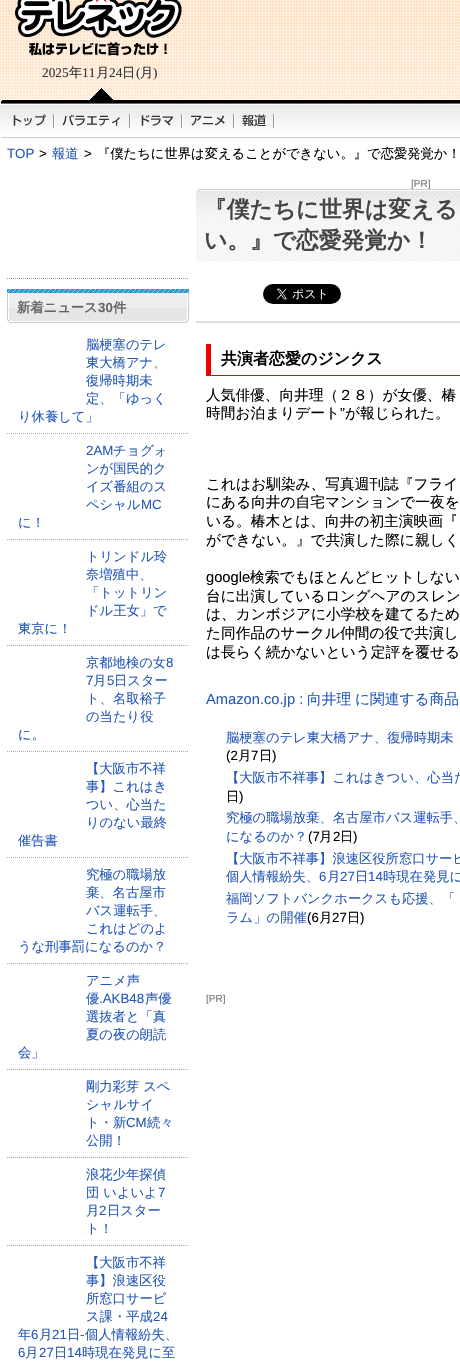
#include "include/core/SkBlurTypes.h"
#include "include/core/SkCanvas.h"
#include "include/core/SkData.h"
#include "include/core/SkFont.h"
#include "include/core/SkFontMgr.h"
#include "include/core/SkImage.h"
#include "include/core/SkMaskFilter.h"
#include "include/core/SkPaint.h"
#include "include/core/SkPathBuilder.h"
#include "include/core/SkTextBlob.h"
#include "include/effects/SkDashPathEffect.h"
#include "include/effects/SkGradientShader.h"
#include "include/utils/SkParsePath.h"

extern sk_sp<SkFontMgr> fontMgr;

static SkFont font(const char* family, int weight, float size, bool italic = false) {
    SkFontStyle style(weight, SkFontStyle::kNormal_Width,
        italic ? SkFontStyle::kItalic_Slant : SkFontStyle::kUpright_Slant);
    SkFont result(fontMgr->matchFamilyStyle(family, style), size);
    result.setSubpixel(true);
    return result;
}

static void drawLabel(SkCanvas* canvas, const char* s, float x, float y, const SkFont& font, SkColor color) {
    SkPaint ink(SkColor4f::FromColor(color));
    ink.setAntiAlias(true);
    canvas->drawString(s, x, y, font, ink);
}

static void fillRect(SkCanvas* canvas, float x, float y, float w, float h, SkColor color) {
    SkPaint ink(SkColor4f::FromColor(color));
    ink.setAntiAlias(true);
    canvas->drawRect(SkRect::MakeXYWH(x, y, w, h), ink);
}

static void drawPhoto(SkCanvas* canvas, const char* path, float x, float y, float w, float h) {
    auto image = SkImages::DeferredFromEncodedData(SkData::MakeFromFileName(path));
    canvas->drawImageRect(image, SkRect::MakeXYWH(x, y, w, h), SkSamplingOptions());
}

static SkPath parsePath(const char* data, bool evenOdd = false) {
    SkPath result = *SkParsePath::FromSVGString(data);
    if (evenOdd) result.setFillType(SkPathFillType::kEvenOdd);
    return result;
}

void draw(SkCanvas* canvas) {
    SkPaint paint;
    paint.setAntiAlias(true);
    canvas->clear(0xFFFFFFFF);
    drawPhoto(canvas, "assets/img1.png", 0, 0, 460, 104);
    SkFont font1 = font("Liberation Serif", 400, 13.3f);
    drawLabel(canvas, "2025", 42, 77, font1, 0xFF333333);
    SkFont font2 = font("WenQuanYi Zen Hei", 500, 13.3f);
    drawLabel(canvas, "年", 69, 77, font2, 0xFF333333);
    drawLabel(canvas, "11", 82, 77, font1, 0xFF333333);
    drawLabel(canvas, "月", 96, 77, font2, 0xFF333333);
    drawLabel(canvas, "24", 109, 77, font1, 0xFF333333);
    drawLabel(canvas, "日", 122, 77, font2, 0xFF333333);
    drawLabel(canvas, "(", 136, 77, font1, 0xFF333333);
    drawLabel(canvas, "月", 140, 77, font2, 0xFF333333);
    drawLabel(canvas, ")", 153, 77, font1, 0xFF333333);
    drawPhoto(canvas, "assets/img2.png", 0, 104, 460, 33);
    drawPhoto(canvas, "assets/img3.png", 13, 114, 33, 12);
    drawPhoto(canvas, "assets/img4.png", 53, 114, 2, 14);
    drawPhoto(canvas, "assets/img5.png", 62, 114, 58, 12);
    drawPhoto(canvas, "assets/img4.png", 129, 114, 2, 14);
    drawPhoto(canvas, "assets/img6.png", 141, 115, 33, 11);
    drawPhoto(canvas, "assets/img4.png", 181, 114, 2, 14);
    drawPhoto(canvas, "assets/img7.png", 191, 115, 34, 11);
    drawPhoto(canvas, "assets/img4.png", 233, 114, 2, 14);
    drawPhoto(canvas, "assets/img8.png", 242, 114, 24, 13);
    drawPhoto(canvas, "assets/img4.png", 273, 114, 2, 14);
    drawPhoto(canvas, "assets/img9.png", 0, 137, 460, 1);
    SkFont font3 = font("Liberation Sans", 400, 13.3f);
    drawLabel(canvas, "TOP", 7, 158, font3, 0xFF2659B7);
    drawLabel(canvas, ">", 39, 158, font3, 0xFF000000);
    drawLabel(canvas, "報道", 52, 158, font2, 0xFF2659B7);
    drawLabel(canvas, ">", 84, 158, font3, 0xFF000000);
    drawLabel(canvas, "『僕たちに世界は変えることができない。』で恋愛発覚か！", 97, 158, font2, 0xFF000000);
    paint.setStroke(true);
    paint.setStrokeWidth(1);
    paint.setColor(0xFF999999);
    paint.setPathEffect(SkDashPathEffect::Make({{1, 1}}, 0));
    canvas->drawPath(parsePath("M7 278.5H189"), paint);
    paint.setPathEffect(nullptr);
    drawPhoto(canvas, "assets/img10.png", 7, 289, 182, 34);
    SkFont font4 = font("WenQuanYi Zen Hei", 700, 13.3f);
    drawLabel(canvas, "新着ニュース", 17, 312, font4, 0xFF666666);
    SkFont font5 = font("Liberation Sans", 700, 13.3f);
    drawLabel(canvas, "30", 98, 312, font5, 0xFF666666);
    drawLabel(canvas, "件", 113, 312, font4, 0xFF666666);
    drawLabel(canvas, "脳梗塞のテレ", 86, 349, font2, 0xFF2659B7);
    drawLabel(canvas, "東大橋アナ、", 86, 367, font2, 0xFF2659B7);
    drawLabel(canvas, "復帰時期未", 86, 385, font2, 0xFF2659B7);
    drawLabel(canvas, "定、「ゆっく", 86, 403, font2, 0xFF2659B7);
    drawLabel(canvas, "り休養して」", 18, 421, font2, 0xFF2659B7);
    paint.setColor(0xFFAAAAAA);
    paint.setPathEffect(SkDashPathEffect::Make({{1, 1}}, 0));
    canvas->drawPath(parsePath("M7 433.5H189"), paint);
    paint.setPathEffect(nullptr);
    drawLabel(canvas, "2AM", 86, 455, font3, 0xFF2659B7);
    drawLabel(canvas, "チョグォ", 113, 455, font2, 0xFF2659B7);
    drawLabel(canvas, "ンが国民的ク", 86, 473, font2, 0xFF2659B7);
    drawLabel(canvas, "イズ番組のス", 86, 491, font2, 0xFF2659B7);
    drawLabel(canvas, "ペシャル", 86, 509, font2, 0xFF2659B7);
    drawLabel(canvas, "MC", 141, 509, font3, 0xFF2659B7);
    drawLabel(canvas, "に！", 18, 527, font2, 0xFF2659B7);
    paint.setPathEffect(SkDashPathEffect::Make({{1, 1}}, 0));
    canvas->drawPath(parsePath("M7 539.5H189"), paint);
    paint.setPathEffect(nullptr);
    drawLabel(canvas, "トリンドル玲", 86, 561, font2, 0xFF2659B7);
    drawLabel(canvas, "奈増殖中、", 86, 579, font2, 0xFF2659B7);
    drawLabel(canvas, "「トットリン", 86, 597, font2, 0xFF2659B7);
    drawLabel(canvas, "ドル王女」で", 86, 615, font2, 0xFF2659B7);
    drawLabel(canvas, "東京に！", 18, 633, font2, 0xFF2659B7);
    paint.setPathEffect(SkDashPathEffect::Make({{1, 1}}, 0));
    canvas->drawPath(parsePath("M7 645.5H189"), paint);
    paint.setPathEffect(nullptr);
    drawLabel(canvas, "京都地検の女", 86, 667, font2, 0xFF2659B7);
    drawLabel(canvas, "8", 166, 667, font3, 0xFF2659B7);
    drawLabel(canvas, "7", 86, 685, font3, 0xFF2659B7);
    drawLabel(canvas, "月", 93, 685, font2, 0xFF2659B7);
    drawLabel(canvas, "5", 107, 685, font3, 0xFF2659B7);
    drawLabel(canvas, "日スター", 114, 685, font2, 0xFF2659B7);
    drawLabel(canvas, "ト、名取裕子", 86, 703, font2, 0xFF2659B7);
    drawLabel(canvas, "の当たり役", 86, 721, font2, 0xFF2659B7);
    drawLabel(canvas, "に。", 18, 739, font2, 0xFF2659B7);
    paint.setPathEffect(SkDashPathEffect::Make({{1, 1}}, 0));
    canvas->drawPath(parsePath("M7 751.5H189"), paint);
    paint.setPathEffect(nullptr);
    drawLabel(canvas, "【大阪市不祥", 86, 773, font2, 0xFF2659B7);
    drawLabel(canvas, "事】これはき", 86, 791, font2, 0xFF2659B7);
    drawLabel(canvas, "つい、心当た", 86, 809, font2, 0xFF2659B7);
    drawLabel(canvas, "りのない最終", 86, 827, font2, 0xFF2659B7);
    drawLabel(canvas, "催告書", 18, 845, font2, 0xFF2659B7);
    paint.setPathEffect(SkDashPathEffect::Make({{1, 1}}, 0));
    canvas->drawPath(parsePath("M7 857.5H189"), paint);
    paint.setPathEffect(nullptr);
    drawLabel(canvas, "究極の職場放", 86, 879, font2, 0xFF2659B7);
    drawLabel(canvas, "棄、名古屋市", 86, 897, font2, 0xFF2659B7);
    drawLabel(canvas, "バス運転手、", 86, 915, font2, 0xFF2659B7);
    drawLabel(canvas, "これはどのよ", 86, 933, font2, 0xFF2659B7);
    drawLabel(canvas, "うな刑事罰になるのか？", 18, 951, font2, 0xFF2659B7);
    paint.setPathEffect(SkDashPathEffect::Make({{1, 1}}, 0));
    canvas->drawPath(parsePath("M7 963.5H189"), paint);
    paint.setPathEffect(nullptr);
    drawLabel(canvas, "アニメ声", 86, 985, font2, 0xFF2659B7);
    drawLabel(canvas, "優", 86, 1003, font2, 0xFF2659B7);
    drawLabel(canvas, ".AKB48", 99, 1003, font3, 0xFF2659B7);
    drawLabel(canvas, "声優", 145, 1003, font2, 0xFF2659B7);
    drawLabel(canvas, "選抜者と「真", 86, 1021, font2, 0xFF2659B7);
    drawLabel(canvas, "夏の夜の朗読", 86, 1039, font2, 0xFF2659B7);
    drawLabel(canvas, "会」", 18, 1057, font2, 0xFF2659B7);
    paint.setPathEffect(SkDashPathEffect::Make({{1, 1}}, 0));
    canvas->drawPath(parsePath("M7 1069.5H189"), paint);
    paint.setPathEffect(nullptr);
    drawLabel(canvas, "剛力彩芽 スペ", 86, 1091, font2, 0xFF2659B7);
    drawLabel(canvas, "シャルサイ", 86, 1109, font2, 0xFF2659B7);
    drawLabel(canvas, "ト・新", 86, 1127, font2, 0xFF2659B7);
    drawLabel(canvas, "CM", 126, 1127, font3, 0xFF2659B7);
    drawLabel(canvas, "続々", 147, 1127, font2, 0xFF2659B7);
    drawLabel(canvas, "公開！", 86, 1145, font2, 0xFF2659B7);
    paint.setPathEffect(SkDashPathEffect::Make({{1, 1}}, 0));
    canvas->drawPath(parsePath("M7 1157.5H189"), paint);
    paint.setPathEffect(nullptr);
    drawLabel(canvas, "浪花少年探偵", 86, 1179, font2, 0xFF2659B7);
    drawLabel(canvas, "団 いよいよ", 86, 1197, font2, 0xFF2659B7);
    drawLabel(canvas, "7", 158, 1197, font3, 0xFF2659B7);
    drawLabel(canvas, "月", 86, 1215, font2, 0xFF2659B7);
    drawLabel(canvas, "2", 99, 1215, font3, 0xFF2659B7);
    drawLabel(canvas, "日スター", 107, 1215, font2, 0xFF2659B7);
    drawLabel(canvas, "ト！", 86, 1233, font2, 0xFF2659B7);
    paint.setPathEffect(SkDashPathEffect::Make({{1, 1}}, 0));
    canvas->drawPath(parsePath("M7 1245.5H189"), paint);
    paint.setPathEffect(nullptr);
    drawLabel(canvas, "【大阪市不祥", 86, 1267, font2, 0xFF2659B7);
    drawLabel(canvas, "事】浪速区役", 86, 1285, font2, 0xFF2659B7);
    drawLabel(canvas, "所窓口サービ", 86, 1303, font2, 0xFF2659B7);
    drawLabel(canvas, "ス課・平成", 86, 1321, font2, 0xFF2659B7);
    drawLabel(canvas, "24", 153, 1321, font3, 0xFF2659B7);
    drawLabel(canvas, "年", 18, 1339, font2, 0xFF2659B7);
    drawLabel(canvas, "6", 31, 1339, font3, 0xFF2659B7);
    drawLabel(canvas, "月", 39, 1339, font2, 0xFF2659B7);
    drawLabel(canvas, "21", 52, 1339, font3, 0xFF2659B7);
    drawLabel(canvas, "日", 67, 1339, font2, 0xFF2659B7);
    drawLabel(canvas, "-", 80, 1339, font3, 0xFF2659B7);
    drawLabel(canvas, "個人情報紛失、", 85, 1339, font2, 0xFF2659B7);
    drawLabel(canvas, "6", 18, 1357, font3, 0xFF2659B7);
    drawLabel(canvas, "月", 25, 1357, font2, 0xFF2659B7);
    drawLabel(canvas, "27", 39, 1357, font3, 0xFF2659B7);
    drawLabel(canvas, "日", 54, 1357, font2, 0xFF2659B7);
    drawLabel(canvas, "14", 67, 1357, font3, 0xFF2659B7);
    drawLabel(canvas, "時現在発見に至", 82, 1357, font2, 0xFF2659B7);
    drawPhoto(canvas, "assets/img11.png", 196, 189, 264, 72);
    SkFont font6 = font("Liberation Sans", 400, 10);
    drawLabel(canvas, "[PR]", 411, 187, font6, 0xFF777777);
    SkFont font7 = font("WenQuanYi Zen Hei", 700, 22.75f);
    drawLabel(canvas, "『僕たちに世界は変える", 204, 217, font7, 0xFF444444);
    drawLabel(canvas, "い。』で恋愛発覚か！", 204, 248, font7, 0xFF444444);
    drawPhoto(canvas, "assets/img12.png", 263, 284, 78, 20);
    fillRect(canvas, 196, 321, 264, 2, 0xFFDDDDDD);
    fillRect(canvas, 206, 375, 254, 1, 0xFFEA0000);
    fillRect(canvas, 206, 344, 5, 32, 0xFFEA0000);
    SkFont font8 = font("WenQuanYi Zen Hei", 700, 16);
    drawLabel(canvas, "共演者恋愛のジンクス", 221, 364, font8, 0xFF000000);
    SkFont font9 = font("WenQuanYi Zen Hei", 500, 14.7f);
    drawLabel(canvas, "人気俳優、向井理（２８）が女優、椿", 206, 400, font9, 0xFF000000);
    drawLabel(canvas, "時間お泊まりデート", 206, 418, font9, 0xFF000000);
    SkFont font10 = font("Liberation Sans", 400, 14.7f);
    drawLabel(canvas, "”", 340, 418, font10, 0xFF000000);
    drawLabel(canvas, "が報じられた。", 345, 418, font9, 0xFF000000);
    drawLabel(canvas, "これはお馴染み、写真週刊誌『フライ", 206, 489, font9, 0xFF000000);
    drawLabel(canvas, "にある向井の自宅マンションで一夜を", 206, 507, font9, 0xFF000000);
    drawLabel(canvas, "いる。椿木とは、向井の初主演映画『", 206, 526, font9, 0xFF000000);
    drawLabel(canvas, "ができない。』で共演した際に親しく", 206, 545, font9, 0xFF000000);
    drawLabel(canvas, "google", 206, 582, font10, 0xFF000000);
    drawLabel(canvas, "検索でもほとんどヒットしない", 250, 582, font9, 0xFF000000);
    drawLabel(canvas, "台に出演しているロングヘアのスレン", 206, 601, font9, 0xFF000000);
    drawLabel(canvas, "は、カンボジアに小学校を建てるため", 206, 619, font9, 0xFF000000);
    drawLabel(canvas, "た同作品のサークル仲間の役で共演し", 206, 638, font9, 0xFF000000);
    drawLabel(canvas, "は長らく続かないという定評を覆せる", 206, 657, font9, 0xFF000000);
    drawLabel(canvas, "Amazon.co.jp :", 206, 704, font10, 0xFF2659B7);
    drawLabel(canvas, "向井理", 307, 704, font9, 0xFF2659B7);
    drawLabel(canvas, "に関連する商品", 355, 704, font9, 0xFF2659B7);
    drawLabel(canvas, "脳梗塞のテレ東大橋アナ、復帰時期未", 226, 742, font2, 0xFF2659B7);
    drawLabel(canvas, "(2", 226, 760, font3, 0xFF000000);
    drawLabel(canvas, "月", 238, 760, font2, 0xFF000000);
    drawLabel(canvas, "7", 251, 760, font3, 0xFF000000);
    drawLabel(canvas, "日", 259, 760, font2, 0xFF000000);
    drawLabel(canvas, ")", 272, 760, font3, 0xFF000000);
    drawLabel(canvas, "【大阪市不祥事】これはきつい、心当た", 226, 782, font2, 0xFF2659B7);
    drawLabel(canvas, "日", 226, 801, font2, 0xFF000000);
    drawLabel(canvas, ")", 239, 801, font3, 0xFF000000);
    drawLabel(canvas, "究極の職場放棄、名古屋市バス運転手、", 226, 822, font2, 0xFF2659B7);
    drawLabel(canvas, "になるのか？", 226, 841, font2, 0xFF2659B7);
    drawLabel(canvas, "(7", 308, 841, font3, 0xFF000000);
    drawLabel(canvas, "月", 319, 841, font2, 0xFF000000);
    drawLabel(canvas, "2", 333, 841, font3, 0xFF000000);
    drawLabel(canvas, "日", 340, 841, font2, 0xFF000000);
    drawLabel(canvas, ")", 353, 841, font3, 0xFF000000);
    drawLabel(canvas, "【大阪市不祥事】浪速区役所窓口サービ", 226, 863, font2, 0xFF2659B7);
    drawLabel(canvas, "個人情報紛失、", 226, 881, font2, 0xFF2659B7);
    drawLabel(canvas, "6", 319, 881, font3, 0xFF2659B7);
    drawLabel(canvas, "月", 327, 881, font2, 0xFF2659B7);
    drawLabel(canvas, "27", 340, 881, font3, 0xFF2659B7);
    drawLabel(canvas, "日", 355, 881, font2, 0xFF2659B7);
    drawLabel(canvas, "14", 368, 881, font3, 0xFF2659B7);
    drawLabel(canvas, "時現在発見に", 383, 881, font2, 0xFF2659B7);
    drawLabel(canvas, "福岡ソフトバンクホークスも応援、「", 226, 903, font2, 0xFF2659B7);
    drawLabel(canvas, "ラム」の開催", 226, 922, font2, 0xFF2659B7);
    drawLabel(canvas, "(6", 307, 922, font3, 0xFF000000);
    drawLabel(canvas, "月", 319, 922, font2, 0xFF000000);
    drawLabel(canvas, "27", 332, 922, font3, 0xFF000000);
    drawLabel(canvas, "日", 347, 922, font2, 0xFF000000);
    drawLabel(canvas, ")", 360, 922, font3, 0xFF000000);
    drawLabel(canvas, "[PR]", 206, 1002, font6, 0xFF777777);
}
